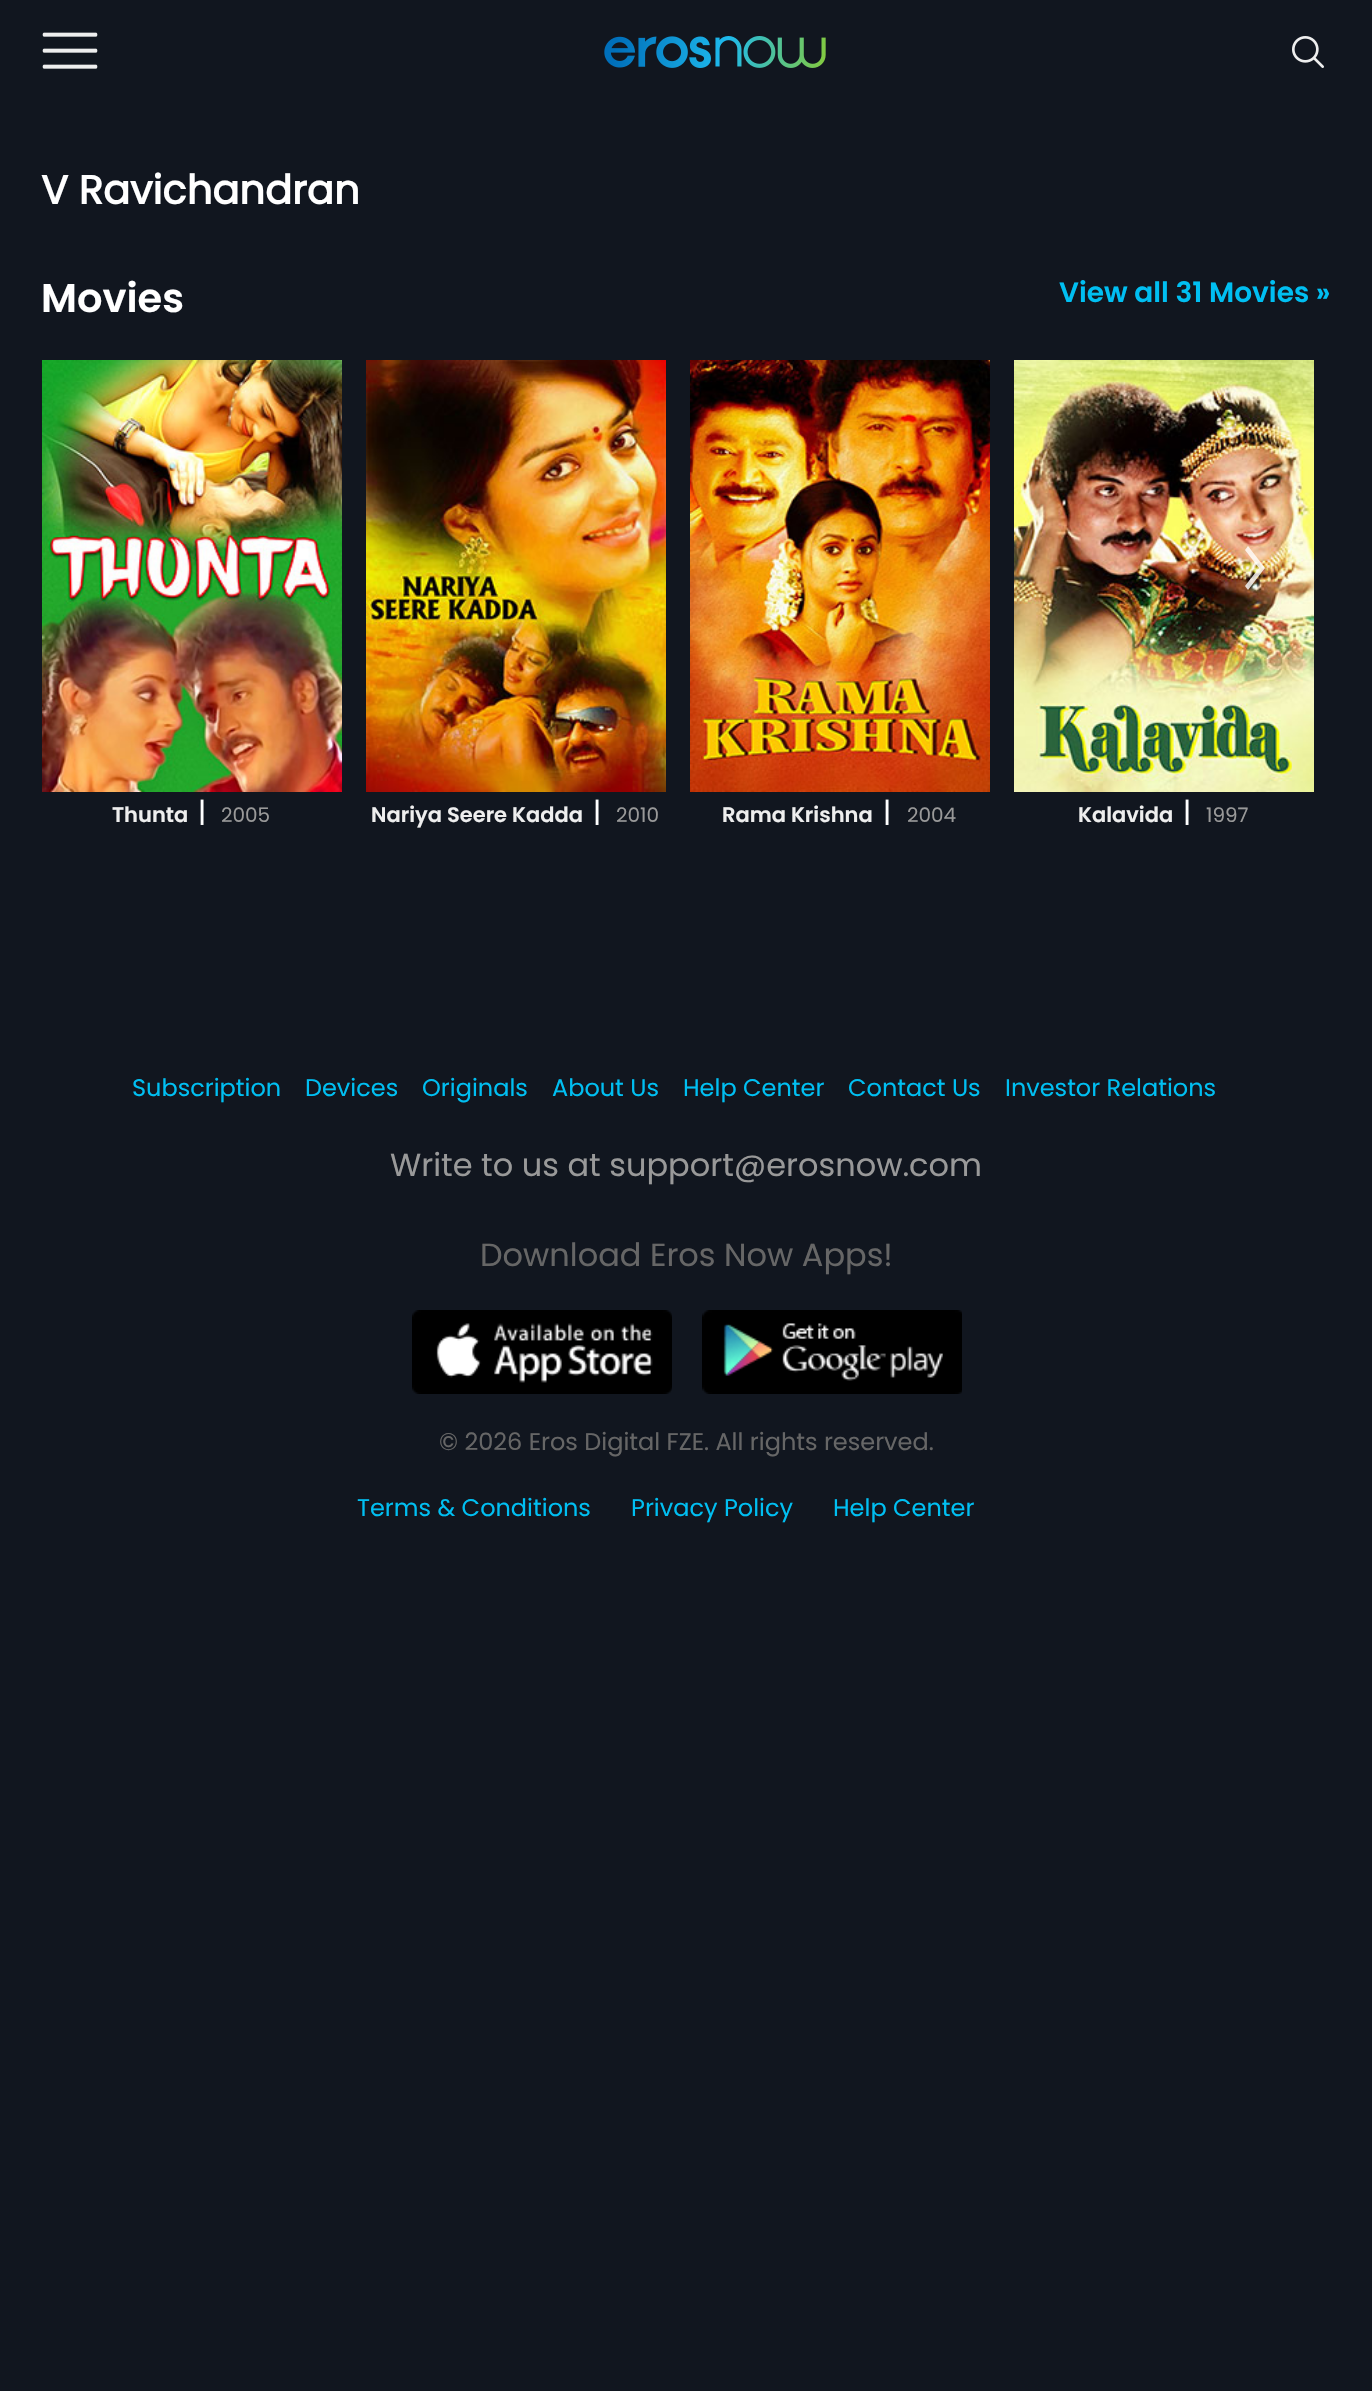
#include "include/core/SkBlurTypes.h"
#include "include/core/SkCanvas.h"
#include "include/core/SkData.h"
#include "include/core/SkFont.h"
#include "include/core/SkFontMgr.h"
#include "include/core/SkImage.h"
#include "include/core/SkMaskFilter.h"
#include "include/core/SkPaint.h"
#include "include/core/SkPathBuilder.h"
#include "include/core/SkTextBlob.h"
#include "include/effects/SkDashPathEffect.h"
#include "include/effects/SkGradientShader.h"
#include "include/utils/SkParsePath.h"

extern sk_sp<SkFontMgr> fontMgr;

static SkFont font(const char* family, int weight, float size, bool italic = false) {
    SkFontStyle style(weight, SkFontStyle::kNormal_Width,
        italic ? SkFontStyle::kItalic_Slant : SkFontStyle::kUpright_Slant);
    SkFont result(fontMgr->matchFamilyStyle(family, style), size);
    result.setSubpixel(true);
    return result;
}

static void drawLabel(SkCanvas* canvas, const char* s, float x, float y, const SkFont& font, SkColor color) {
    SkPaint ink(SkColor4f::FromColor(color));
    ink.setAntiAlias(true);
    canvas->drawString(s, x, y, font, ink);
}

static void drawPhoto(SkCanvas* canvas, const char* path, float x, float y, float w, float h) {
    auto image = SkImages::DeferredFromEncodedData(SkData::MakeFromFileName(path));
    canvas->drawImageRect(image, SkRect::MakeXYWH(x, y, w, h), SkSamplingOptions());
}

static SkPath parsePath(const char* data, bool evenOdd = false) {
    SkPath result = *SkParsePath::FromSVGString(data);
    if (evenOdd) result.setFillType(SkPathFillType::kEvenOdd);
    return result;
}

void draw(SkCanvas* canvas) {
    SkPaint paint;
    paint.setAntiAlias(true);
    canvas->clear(0xFF11161F);
    drawPhoto(canvas, "assets/img1.png", 42, 32, 56, 37);
    drawPhoto(canvas, "assets/img2.png", 604, 36, 222, 32);
    drawPhoto(canvas, "assets/img3.png", 1292, 36, 32, 32);
    SkFont font1 = font("Poppins", 700, 40);
    drawLabel(canvas, "V Ravichandran", 41, 204, font1, 0xFFFFFFFF);
    SkFont font2 = font("Poppins", 600, 40);
    drawLabel(canvas, "Movies", 41, 312, font2, 0xFFFFFFFF);
    SkFont font3 = font("Poppins", 600, 28);
    drawLabel(canvas, "View all 31 Movies »", 1059, 302, font3, 0xFF00BFF2);
    drawPhoto(canvas, "assets/img7.png", 1014, 360, 300, 432);
    paint.setColor(0xCCFFFFFF);
    canvas->drawPath(parsePath("M1265 568L1248 546L1245 550L1259 568L1245 586L1248 590Z"), paint);
    drawPhoto(canvas, "assets/img4.png", 42, 360, 300, 432);
    SkFont font4 = font("Poppins", 600, 21);
    drawLabel(canvas, "Thunta", 112, 822, font4, 0xFFEEEEEE);
    SkFont font5 = font("Poppins", 400, 28);
    drawLabel(canvas, "|", 198, 822, font5, 0xFFFFFFFF);
    SkFont font6 = font("Poppins", 400, 20);
    drawLabel(canvas, "2005", 221, 822, font6, 0xFF999999);
    drawPhoto(canvas, "assets/img5.png", 366, 360, 300, 432);
    drawLabel(canvas, "Nariya Seere Kadda", 371, 822, font4, 0xFFEEEEEE);
    drawLabel(canvas, "|", 593, 822, font5, 0xFFFFFFFF);
    drawLabel(canvas, "2010", 616, 822, font6, 0xFF999999);
    drawPhoto(canvas, "assets/img6.png", 690, 360, 300, 432);
    drawLabel(canvas, "Rama Krishna", 722, 822, font4, 0xFFEEEEEE);
    drawLabel(canvas, "|", 883, 822, font5, 0xFFFFFFFF);
    drawLabel(canvas, "2004", 907, 822, font6, 0xFF999999);
    drawLabel(canvas, "Kalavida", 1078, 822, font4, 0xFFEEEEEE);
    drawLabel(canvas, "|", 1183, 822, font5, 0xFFFFFFFF);
    drawLabel(canvas, "1997", 1206, 822, font6, 0xFF999999);
    SkFont font7 = font("Poppins", 400, 24);
    drawLabel(canvas, "Subscription", 132, 1096, font7, 0xFF00BFF2);
    drawLabel(canvas, "Devices", 305, 1096, font7, 0xFF00BFF2);
    drawLabel(canvas, "Originals", 422, 1096, font7, 0xFF00BFF2);
    drawLabel(canvas, "About Us", 552, 1096, font7, 0xFF00BFF2);
    drawLabel(canvas, "Help Center", 683, 1096, font7, 0xFF00BFF2);
    drawLabel(canvas, "Contact Us", 848, 1096, font7, 0xFF00BFF2);
    drawLabel(canvas, "Investor Relations", 1005, 1096, font7, 0xFF00BFF2);
    SkFont font8 = font("Poppins", 400, 32);
    drawLabel(canvas, "Write to us at support@erosnow.com", 390, 1176, font8, 0xFF999999);
    drawLabel(canvas, "Download Eros Now Apps!", 480, 1266, font8, 0xFF666666);
    drawPhoto(canvas, "assets/img8.png", 412, 1310, 260, 84);
    drawPhoto(canvas, "assets/img9.png", 702, 1310, 260, 84);
    drawLabel(canvas, "© 2026 Eros Digital FZE. All rights reserved.", 439, 1450, font7, 0xFF666666);
    drawLabel(canvas, "Terms & Conditions", 357, 1516, font7, 0xFF00BFF2);
    drawLabel(canvas, "Privacy Policy", 631, 1516, font7, 0xFF00BFF2);
    drawLabel(canvas, "Help Center", 833, 1516, font7, 0xFF00BFF2);
}
